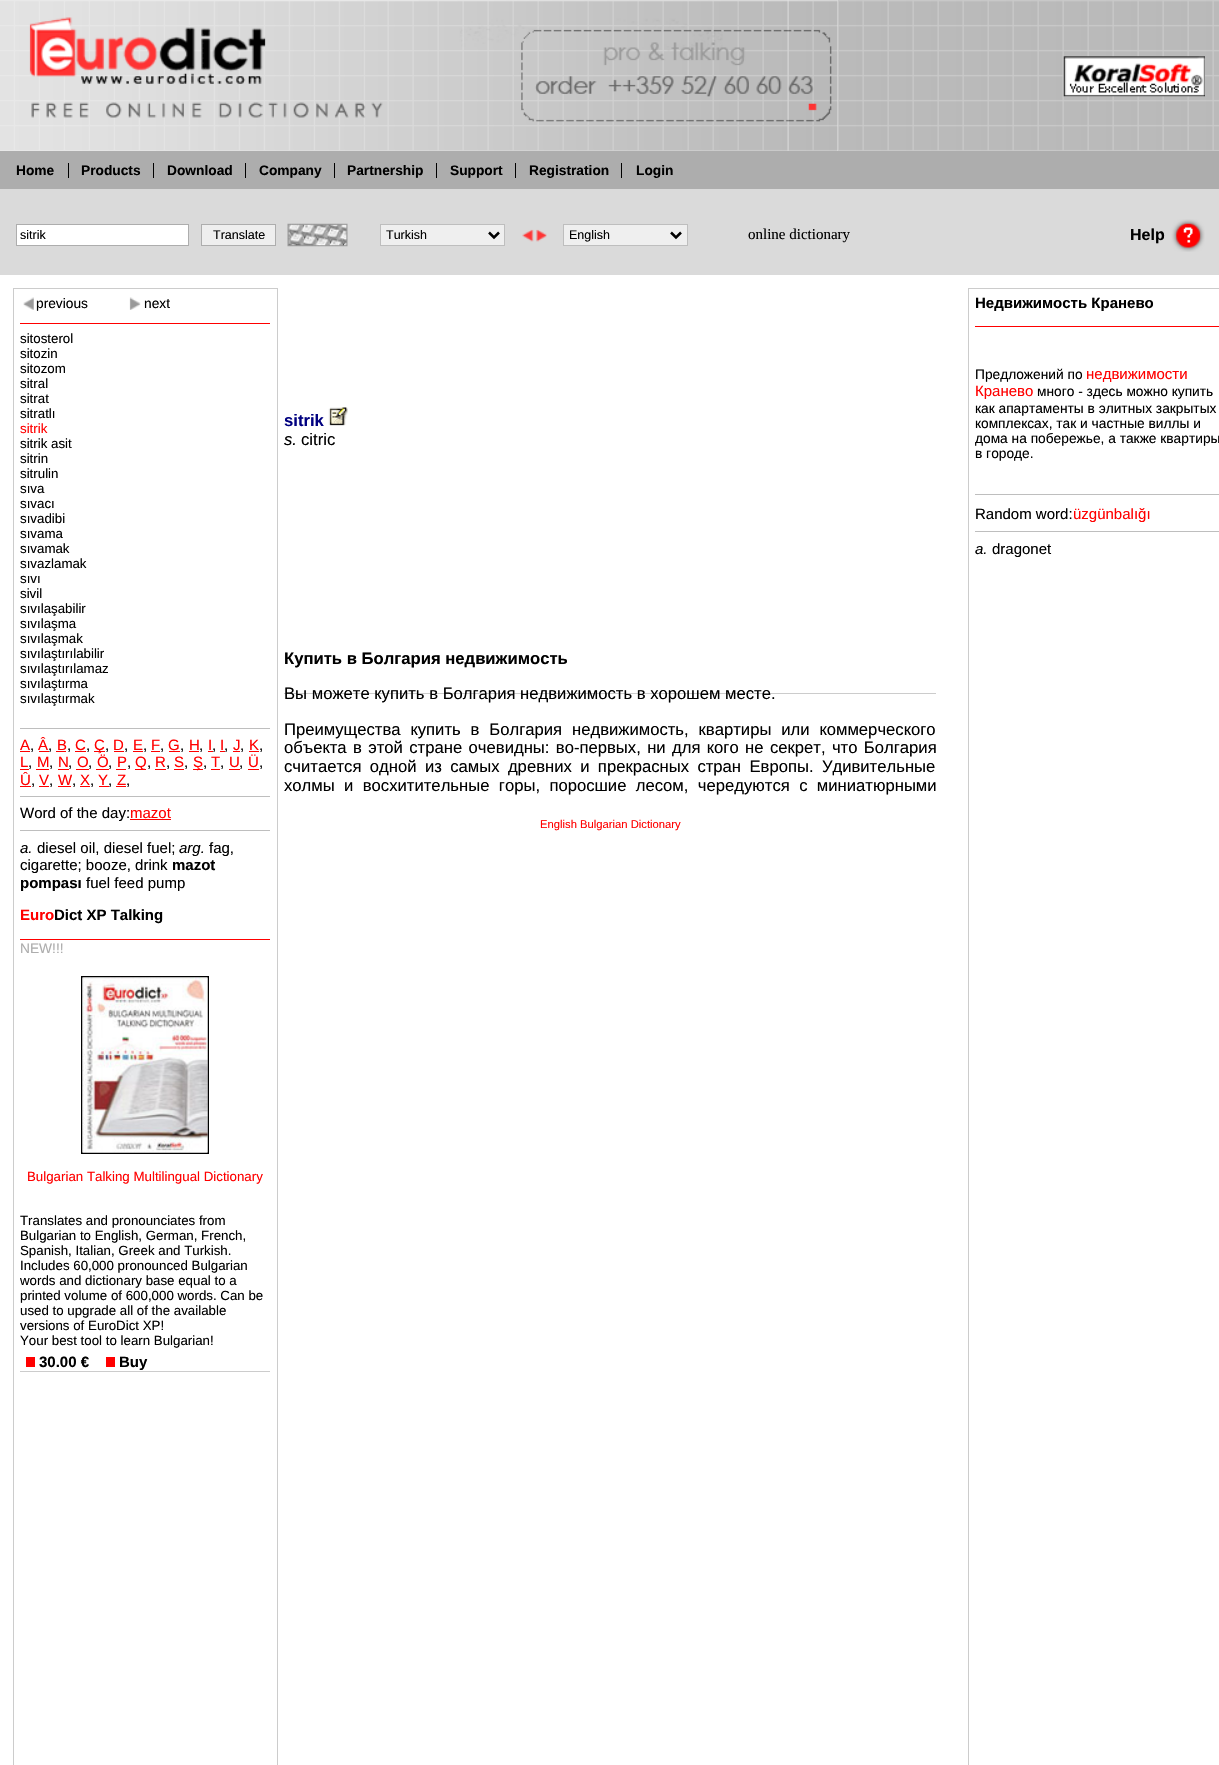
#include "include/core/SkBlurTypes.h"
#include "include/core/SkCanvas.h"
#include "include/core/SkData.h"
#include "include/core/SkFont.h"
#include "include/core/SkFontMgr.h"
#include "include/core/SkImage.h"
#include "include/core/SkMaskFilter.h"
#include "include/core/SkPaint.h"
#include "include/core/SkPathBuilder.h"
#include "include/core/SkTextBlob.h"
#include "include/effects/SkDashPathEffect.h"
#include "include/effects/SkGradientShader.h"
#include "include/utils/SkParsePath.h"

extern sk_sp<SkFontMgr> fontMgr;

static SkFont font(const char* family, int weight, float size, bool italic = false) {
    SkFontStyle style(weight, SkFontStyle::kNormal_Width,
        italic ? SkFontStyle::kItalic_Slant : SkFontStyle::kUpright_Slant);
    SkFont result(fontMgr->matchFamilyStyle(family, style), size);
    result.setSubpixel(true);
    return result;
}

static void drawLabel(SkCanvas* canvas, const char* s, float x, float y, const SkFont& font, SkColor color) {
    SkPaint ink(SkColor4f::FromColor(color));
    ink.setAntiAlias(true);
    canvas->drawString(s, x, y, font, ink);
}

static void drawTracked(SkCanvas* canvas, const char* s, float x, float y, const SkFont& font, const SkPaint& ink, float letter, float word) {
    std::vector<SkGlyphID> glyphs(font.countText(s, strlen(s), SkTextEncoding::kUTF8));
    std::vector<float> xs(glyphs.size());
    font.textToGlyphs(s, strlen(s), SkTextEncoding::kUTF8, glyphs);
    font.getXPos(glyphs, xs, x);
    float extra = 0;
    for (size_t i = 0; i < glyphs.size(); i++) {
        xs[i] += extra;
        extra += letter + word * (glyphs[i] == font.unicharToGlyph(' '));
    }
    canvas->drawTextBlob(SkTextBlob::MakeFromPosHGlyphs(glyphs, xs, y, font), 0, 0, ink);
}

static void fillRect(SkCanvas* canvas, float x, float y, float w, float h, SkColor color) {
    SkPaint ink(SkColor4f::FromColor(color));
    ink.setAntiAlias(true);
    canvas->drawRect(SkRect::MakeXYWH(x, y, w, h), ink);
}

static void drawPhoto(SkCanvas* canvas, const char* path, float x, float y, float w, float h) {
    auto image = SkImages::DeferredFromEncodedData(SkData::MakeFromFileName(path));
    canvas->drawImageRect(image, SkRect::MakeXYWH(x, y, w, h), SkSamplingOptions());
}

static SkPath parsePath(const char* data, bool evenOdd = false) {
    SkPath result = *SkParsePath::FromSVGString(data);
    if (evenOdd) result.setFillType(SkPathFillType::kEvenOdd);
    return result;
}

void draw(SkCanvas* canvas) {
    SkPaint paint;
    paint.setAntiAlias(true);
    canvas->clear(0xFFFFFFFF);
    drawPhoto(canvas, "assets/img1.png", 0, 0, 838, 151);
    drawPhoto(canvas, "assets/img2.png", 837, 0, 382, 151);
    drawPhoto(canvas, "assets/img3.png", 1063, 56, 142, 41);
    fillRect(canvas, 0, 151, 1219, 38, 0xFFADADAD);
    SkFont font1 = font("Liberation Sans", 700, 13.75f);
    drawLabel(canvas, "Home", 16, 175, font1, 0xFF000000);
    fillRect(canvas, 68, 163, 1, 15, 0xFF000000);
    drawLabel(canvas, "Products", 81, 175, font1, 0xFF000000);
    fillRect(canvas, 153, 163, 1, 15, 0xFF000000);
    drawLabel(canvas, "Download", 167, 175, font1, 0xFF000000);
    fillRect(canvas, 245, 163, 1, 15, 0xFF000000);
    drawLabel(canvas, "Company", 259, 175, font1, 0xFF000000);
    fillRect(canvas, 334, 163, 1, 15, 0xFF000000);
    drawLabel(canvas, "Partnership", 347, 175, font1, 0xFF000000);
    fillRect(canvas, 436, 163, 1, 15, 0xFF000000);
    drawLabel(canvas, "Support", 450, 175, font1, 0xFF000000);
    fillRect(canvas, 515, 163, 1, 15, 0xFF000000);
    drawLabel(canvas, "Registration", 529, 175, font1, 0xFF000000);
    fillRect(canvas, 621, 163, 1, 15, 0xFF000000);
    drawLabel(canvas, "Login", 636, 175, font1, 0xFF000000);
    fillRect(canvas, 0, 189, 1219, 86, 0xFFDADADA);
    paint.setColor(0xFFFFFFFF);
    canvas->drawRect(SkRect::MakeXYWH(16.5f, 224.5f, 172, 21), paint);
    paint.setStroke(true);
    paint.setStrokeWidth(1);
    paint.setColor(0xFFADADAD);
    canvas->drawRect(SkRect::MakeXYWH(16.5f, 224.5f, 172, 21), paint);
    SkFont font2 = font("Liberation Sans", 400, 12.5f);
    drawLabel(canvas, "sitrik", 20, 239, font2, 0xFF000000);
    paint.setStroke(false);
    paint.setColor(0xFFEEEEEE);
    canvas->drawRect(SkRect::MakeXYWH(201.5f, 224.5f, 74, 21), paint);
    paint.setStroke(true);
    paint.setColor(0xFFADADAD);
    canvas->drawRect(SkRect::MakeXYWH(201.5f, 224.5f, 74, 21), paint);
    drawLabel(canvas, "Translate", 213, 239, font2, 0xFF000000);
    drawPhoto(canvas, "assets/img4.png", 287, 223, 61, 24);
    paint.setStroke(false);
    paint.setColor(0xFFEFEFEF);
    canvas->drawRect(SkRect::MakeXYWH(380.5f, 224.5f, 124, 21), paint);
    paint.setStroke(true);
    paint.setColor(0xFFBEBEBE);
    canvas->drawRect(SkRect::MakeXYWH(380.5f, 224.5f, 124, 21), paint);
    paint.setStrokeWidth(2.5f);
    paint.setColor(0xFF000000);
    canvas->drawPath(parsePath("M489 232.5L494 237.5L499 232.5"), paint);
    drawLabel(canvas, "Turkish", 386, 239, font2, 0xFF000000);
    drawPhoto(canvas, "assets/img5.png", 522, 229, 25, 13);
    paint.setStroke(false);
    paint.setColor(0xFFEFEFEF);
    canvas->drawRect(SkRect::MakeXYWH(563.5f, 224.5f, 124, 21), paint);
    paint.setStroke(true);
    paint.setStrokeWidth(1);
    paint.setColor(0xFFBEBEBE);
    canvas->drawRect(SkRect::MakeXYWH(563.5f, 224.5f, 124, 21), paint);
    paint.setStrokeWidth(2.5f);
    paint.setColor(0xFF000000);
    canvas->drawPath(parsePath("M671 232.5L676 237.5L681 232.5"), paint);
    drawLabel(canvas, "English", 569, 239, font2, 0xFF000000);
    SkFont font3 = font("Liberation Serif", 400, 15);
    drawLabel(canvas, "online dictionary", 748, 239, font3, 0xFF000000);
    SkFont font4 = font("Liberation Sans", 700, 16);
    drawLabel(canvas, "Help", 1130, 240, font4, 0xFF000000);
    drawPhoto(canvas, "assets/img6.png", 1171, 219, 34, 33);
    paint.setStrokeWidth(1);
    paint.setColor(0xFFCCCCCC);
    canvas->drawRect(SkRect::MakeXYWH(13.5f, 288.5f, 264, 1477), paint);
    fillRect(canvas, 20, 323, 250, 1, 0xFFFF0000);
    drawPhoto(canvas, "assets/img7.png", 23, 297, 11, 13);
    SkFont font5 = font("Liberation Sans", 400, 13.75f);
    drawLabel(canvas, "previous", 36, 308, font5, 0xFF000000);
    drawPhoto(canvas, "assets/img8.png", 129, 297, 12, 13);
    drawLabel(canvas, "next", 144, 308, font5, 0xFF000000);
    SkFont font6 = font("Liberation Sans", 400, 13.3f);
    drawLabel(canvas, "sitosterol", 20, 343, font6, 0xFF000000);
    drawLabel(canvas, "sitozin", 20, 358, font6, 0xFF000000);
    drawLabel(canvas, "sitozom", 20, 373, font6, 0xFF000000);
    drawLabel(canvas, "sitral", 20, 388, font6, 0xFF000000);
    drawLabel(canvas, "sitrat", 20, 403, font6, 0xFF000000);
    drawLabel(canvas, "sitratlı", 20, 418, font6, 0xFF000000);
    drawLabel(canvas, "sitrik", 20, 433, font6, 0xFFFF0000);
    drawLabel(canvas, "sitrik asit", 20, 448, font6, 0xFF000000);
    drawLabel(canvas, "sitrin", 20, 463, font6, 0xFF000000);
    drawLabel(canvas, "sitrulin", 20, 478, font6, 0xFF000000);
    drawLabel(canvas, "sıva", 20, 493, font6, 0xFF000000);
    drawLabel(canvas, "sıvacı", 20, 508, font6, 0xFF000000);
    drawLabel(canvas, "sıvadibi", 20, 523, font6, 0xFF000000);
    drawLabel(canvas, "sıvama", 20, 538, font6, 0xFF000000);
    drawLabel(canvas, "sıvamak", 20, 553, font6, 0xFF000000);
    drawLabel(canvas, "sıvazlamak", 20, 568, font6, 0xFF000000);
    drawLabel(canvas, "sıvı", 20, 583, font6, 0xFF000000);
    drawLabel(canvas, "sivil", 20, 598, font6, 0xFF000000);
    drawLabel(canvas, "sıvılaşabilir", 20, 613, font6, 0xFF000000);
    drawLabel(canvas, "sıvılaşma", 20, 628, font6, 0xFF000000);
    drawLabel(canvas, "sıvılaşmak", 20, 643, font6, 0xFF000000);
    drawLabel(canvas, "sıvılaştırılabilir", 20, 658, font6, 0xFF000000);
    drawLabel(canvas, "sıvılaştırılamaz", 20, 673, font6, 0xFF000000);
    drawLabel(canvas, "sıvılaştırma", 20, 688, font6, 0xFF000000);
    drawLabel(canvas, "sıvılaştırmak", 20, 703, font6, 0xFF000000);
    fillRect(canvas, 20, 728, 250, 1, 0xFFBEBEBE);
    SkFont font7 = font("Liberation Sans", 400, 15);
    drawLabel(canvas, "A", 20, 750, font7, 0xFFFF0000);
    drawLabel(canvas, ",", 30, 750, font7, 0xFF000000);
    fillRect(canvas, 20, 751, 10, 1, 0xFFFF0000);
    drawLabel(canvas, "Â", 38, 750, font7, 0xFFFF0000);
    drawLabel(canvas, ",", 48, 750, font7, 0xFF000000);
    fillRect(canvas, 39, 751, 10, 1, 0xFFFF0000);
    drawLabel(canvas, "B", 57, 750, font7, 0xFFFF0000);
    drawLabel(canvas, ",", 67, 750, font7, 0xFF000000);
    fillRect(canvas, 56, 751, 10, 1, 0xFFFF0000);
    drawLabel(canvas, "C", 75, 750, font7, 0xFFFF0000);
    drawLabel(canvas, ",", 86, 750, font7, 0xFF000000);
    fillRect(canvas, 75, 751, 11, 1, 0xFFFF0000);
    fillRect(canvas, 94, 751, 11, 1, 0xFFFF0000);
    drawLabel(canvas, "Ç", 94, 750, font7, 0xFFFF0000);
    drawLabel(canvas, ",", 105, 750, font7, 0xFF000000);
    drawLabel(canvas, "D", 113, 750, font7, 0xFFFF0000);
    drawLabel(canvas, ",", 124, 750, font7, 0xFF000000);
    fillRect(canvas, 114, 751, 10, 1, 0xFFFF0000);
    drawLabel(canvas, "E", 133, 750, font7, 0xFFFF0000);
    drawLabel(canvas, ",", 143, 750, font7, 0xFF000000);
    fillRect(canvas, 133, 751, 10, 1, 0xFFFF0000);
    drawLabel(canvas, "F", 151, 750, font7, 0xFFFF0000);
    drawLabel(canvas, ",", 160, 750, font7, 0xFF000000);
    fillRect(canvas, 151, 751, 9, 1, 0xFFFF0000);
    drawLabel(canvas, "G", 168, 750, font7, 0xFFFF0000);
    drawLabel(canvas, ",", 180, 750, font7, 0xFF000000);
    fillRect(canvas, 169, 751, 11, 1, 0xFFFF0000);
    drawLabel(canvas, "H", 189, 750, font7, 0xFFFF0000);
    drawLabel(canvas, ",", 199, 750, font7, 0xFF000000);
    fillRect(canvas, 189, 751, 10, 1, 0xFFFF0000);
    drawLabel(canvas, "I", 208, 750, font7, 0xFFFF0000);
    drawLabel(canvas, ",", 212, 750, font7, 0xFF000000);
    fillRect(canvas, 208, 751, 5, 1, 0xFFFF0000);
    drawLabel(canvas, "I", 220, 750, font7, 0xFFFF0000);
    drawLabel(canvas, ",", 224, 750, font7, 0xFF000000);
    fillRect(canvas, 220, 751, 5, 1, 0xFFFF0000);
    drawLabel(canvas, "J", 233, 750, font7, 0xFFFF0000);
    drawLabel(canvas, ",", 240, 750, font7, 0xFF000000);
    fillRect(canvas, 233, 751, 7, 1, 0xFFFF0000);
    drawLabel(canvas, "K", 249, 750, font7, 0xFFFF0000);
    drawLabel(canvas, ",", 259, 750, font7, 0xFF000000);
    fillRect(canvas, 249, 751, 10, 1, 0xFFFF0000);
    drawLabel(canvas, "L", 20, 767, font7, 0xFFFF0000);
    drawLabel(canvas, ",", 28, 767, font7, 0xFF000000);
    fillRect(canvas, 20, 769, 9, 1, 0xFFFF0000);
    drawLabel(canvas, "M", 37, 767, font7, 0xFFFF0000);
    drawLabel(canvas, ",", 49, 767, font7, 0xFF000000);
    fillRect(canvas, 36, 769, 13, 1, 0xFFFF0000);
    drawLabel(canvas, "N", 58, 767, font7, 0xFFFF0000);
    drawLabel(canvas, ",", 68, 767, font7, 0xFF000000);
    fillRect(canvas, 58, 769, 11, 1, 0xFFFF0000);
    drawLabel(canvas, "O", 77, 767, font7, 0xFFFF0000);
    drawLabel(canvas, ",", 88, 767, font7, 0xFF000000);
    fillRect(canvas, 76, 769, 13, 1, 0xFFFF0000);
    drawLabel(canvas, "Ö", 97, 767, font7, 0xFFFF0000);
    drawLabel(canvas, ",", 108, 767, font7, 0xFF000000);
    fillRect(canvas, 96, 769, 13, 1, 0xFFFF0000);
    drawLabel(canvas, "P", 117, 767, font7, 0xFFFF0000);
    drawLabel(canvas, ",", 127, 767, font7, 0xFF000000);
    fillRect(canvas, 116, 769, 10, 1, 0xFFFF0000);
    fillRect(canvas, 135, 769, 11, 1, 0xFFFF0000);
    drawLabel(canvas, "Q", 135, 767, font7, 0xFFFF0000);
    drawLabel(canvas, ",", 147, 767, font7, 0xFF000000);
    drawLabel(canvas, "R", 155, 767, font7, 0xFFFF0000);
    drawLabel(canvas, ",", 166, 767, font7, 0xFF000000);
    fillRect(canvas, 155, 769, 11, 1, 0xFFFF0000);
    drawLabel(canvas, "S", 174, 767, font7, 0xFFFF0000);
    drawLabel(canvas, ",", 184, 767, font7, 0xFF000000);
    fillRect(canvas, 174, 769, 10, 1, 0xFFFF0000);
    fillRect(canvas, 193, 769, 10, 1, 0xFFFF0000);
    drawLabel(canvas, "Ş", 193, 767, font7, 0xFFFF0000);
    drawLabel(canvas, ",", 203, 767, font7, 0xFF000000);
    drawLabel(canvas, "T", 211, 767, font7, 0xFFFF0000);
    drawLabel(canvas, ",", 220, 767, font7, 0xFF000000);
    fillRect(canvas, 211, 769, 9, 1, 0xFFFF0000);
    drawLabel(canvas, "U", 229, 767, font7, 0xFFFF0000);
    drawLabel(canvas, ",", 239, 767, font7, 0xFF000000);
    fillRect(canvas, 229, 769, 11, 1, 0xFFFF0000);
    drawLabel(canvas, "Ü", 248, 767, font7, 0xFFFF0000);
    drawLabel(canvas, ",", 259, 767, font7, 0xFF000000);
    fillRect(canvas, 248, 769, 11, 1, 0xFFFF0000);
    drawLabel(canvas, "Û", 20, 785, font7, 0xFFFF0000);
    drawLabel(canvas, ",", 31, 785, font7, 0xFF000000);
    fillRect(canvas, 20, 786, 11, 1, 0xFFFF0000);
    drawLabel(canvas, "V", 39, 785, font7, 0xFFFF0000);
    drawLabel(canvas, ",", 49, 785, font7, 0xFF000000);
    fillRect(canvas, 39, 786, 10, 1, 0xFFFF0000);
    drawLabel(canvas, "W", 58, 785, font7, 0xFFFF0000);
    drawLabel(canvas, ",", 72, 785, font7, 0xFF000000);
    fillRect(canvas, 58, 786, 13, 1, 0xFFFF0000);
    drawLabel(canvas, "X", 80, 785, font7, 0xFFFF0000);
    drawLabel(canvas, ",", 90, 785, font7, 0xFF000000);
    fillRect(canvas, 80, 786, 10, 1, 0xFFFF0000);
    drawLabel(canvas, "Y", 98, 785, font7, 0xFFFF0000);
    drawLabel(canvas, ",", 108, 785, font7, 0xFF000000);
    fillRect(canvas, 99, 786, 10, 1, 0xFFFF0000);
    drawLabel(canvas, "Z", 117, 785, font7, 0xFFFF0000);
    drawLabel(canvas, ",", 126, 785, font7, 0xFF000000);
    fillRect(canvas, 116, 786, 10, 1, 0xFFFF0000);
    fillRect(canvas, 20, 796, 250, 1, 0xFFBEBEBE);
    drawLabel(canvas, "Word of the day:", 20, 818, font7, 0xFF000000);
    drawLabel(canvas, "mazot", 130, 818, font7, 0xFFFF0000);
    fillRect(canvas, 130, 819, 41, 1, 0xFFFF0000);
    fillRect(canvas, 20, 830, 250, 1, 0xFFBEBEBE);
    SkFont font8 = font("Liberation Sans", 400, 15, true);
    drawLabel(canvas, "a.", 20, 853, font8, 0xFF000000);
    drawLabel(canvas, "diesel oil, diesel fuel;", 37, 853, font7, 0xFF000000);
    drawLabel(canvas, "arg.", 179, 853, font8, 0xFF000000);
    drawLabel(canvas, "fag,", 209, 853, font7, 0xFF000000);
    drawLabel(canvas, "cigarette; booze, drink", 20, 870, font7, 0xFF000000);
    SkFont font9 = font("Liberation Sans", 700, 15);
    drawLabel(canvas, "mazot", 172, 870, font9, 0xFF000000);
    drawLabel(canvas, "pompası", 20, 888, font9, 0xFF000000);
    drawLabel(canvas, "fuel feed pump", 86, 888, font7, 0xFF000000);
    fillRect(canvas, 20, 939, 250, 1, 0xFFFF0000);
    drawLabel(canvas, "Euro", 20, 920, font9, 0xFFFF0000);
    drawLabel(canvas, "Dict XP Talking", 54, 920, font9, 0xFF000000);
    drawLabel(canvas, "NEW!!!", 20, 953, font5, 0xFFADADAD);
    paint.setColor(0xFF000000);
    canvas->drawRect(SkRect::MakeXYWH(81.5f, 976.5f, 127, 177), paint);
    drawPhoto(canvas, "assets/img9.png", 82, 977, 126, 176);
    drawLabel(canvas, "Bulgarian Talking Multilingual Dictionary", 27, 1181, font6, 0xFFFF0000);
    drawLabel(canvas, "Translates and pronounciates from", 20, 1225, font6, 0xFF000000);
    drawLabel(canvas, "Bulgarian to English, German, French,", 20, 1240, font6, 0xFF000000);
    drawLabel(canvas, "Spanish, Italian, Greek and Turkish.", 20, 1255, font6, 0xFF000000);
    drawLabel(canvas, "Includes 60,000 pronounced Bulgarian", 20, 1270, font6, 0xFF000000);
    drawLabel(canvas, "words and dictionary base equal to a", 20, 1285, font6, 0xFF000000);
    drawLabel(canvas, "printed volume of 600,000 words. Can be", 20, 1300, font6, 0xFF000000);
    drawLabel(canvas, "used to upgrade all of the available", 20, 1315, font6, 0xFF000000);
    drawLabel(canvas, "versions of EuroDict XP!", 20, 1330, font6, 0xFF000000);
    drawLabel(canvas, "Your best tool to learn Bulgarian!", 20, 1345, font6, 0xFF000000);
    fillRect(canvas, 20, 1371, 250, 1, 0xFFCCCCCC);
    drawLabel(canvas, "30.00 €", 39, 1367, font9, 0xFF000000);
    fillRect(canvas, 26, 1357, 9, 10, 0xFFFF0000);
    drawLabel(canvas, "Buy", 119, 1367, font9, 0xFF000000);
    fillRect(canvas, 106, 1357, 9, 10, 0xFFFF0000);
    SkFont font10 = font("Liberation Sans", 700, 16.65f);
    drawLabel(canvas, "sitrik", 284, 426, font10, 0xFF000080);
    drawPhoto(canvas, "assets/img10.png", 328, 407, 20, 19);
    SkFont font11 = font("Liberation Sans", 400, 16.65f, true);
    drawLabel(canvas, "s.", 284, 445, font11, 0xFF000000);
    SkFont font12 = font("Liberation Sans", 400, 16.65f);
    drawLabel(canvas, "citric", 301, 445, font12, 0xFF000000);
    drawLabel(canvas, "Купить в Болгария недвижимость", 284, 664, font10, 0xFF000000);
    fillRect(canvas, 284, 693, 652, 1, 0xFFCCCCCC);
    drawLabel(canvas, "Вы можете купить в Болгария недвижимость в хорошем месте.", 284, 699, font12, 0xFF000000);
    paint.setStroke(false);
    drawTracked(canvas, "Преимущества купить в Болгария недвижимость, квартиры или коммерческого", 284, 735, font12, paint, 0, 5.25f);
    drawTracked(canvas, "объекта в этой стране очевидны: во-первых, ни для кого не секрет, что Болгария", 284, 753, font12, paint, 0, 1.75f);
    drawTracked(canvas, "считается одной из самых древних и прекрасных стран Европы. Удивительные", 284, 772, font12, paint, 0, 3.75f);
    drawTracked(canvas, "холмы и восхитительные горы, поросшие лесом, чередуются с миниатюрными", 284, 791, font12, paint, 0, 4.75f);
    SkFont font13 = font("Liberation Sans", 400, 11.25f);
    drawLabel(canvas, "English Bulgarian Dictionary", 540, 828, font13, 0xFFFF0000);
    paint.setStroke(true);
    paint.setColor(0xFFCCCCCC);
    canvas->drawRect(SkRect::MakeXYWH(968.5f, 288.5f, 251, 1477), paint);
    fillRect(canvas, 975, 326, 244, 1, 0xFFFF0000);
    drawLabel(canvas, "Недвижимость Кранево", 975, 308, font9, 0xFF000000);
    drawLabel(canvas, "Предложений по", 975, 379, font5, 0xFF000000);
    drawLabel(canvas, "недвижимости", 1086, 379, font7, 0xFFFF0000);
    drawLabel(canvas, "Кранево", 975, 396, font7, 0xFFFF0000);
    drawLabel(canvas, "много - здесь можно купить", 1037, 396, font5, 0xFF000000);
    drawLabel(canvas, "как апартаменты в элитных закрытых", 975, 413, font5, 0xFF000000);
    drawLabel(canvas, "комплексах, так и частные виллы и", 975, 428, font5, 0xFF000000);
    drawLabel(canvas, "дома на побережье, а также квартиры", 975, 443, font5, 0xFF000000);
    drawLabel(canvas, "в городе.", 975, 458, font5, 0xFF000000);
    fillRect(canvas, 975, 494, 244, 1, 0xFFBEBEBE);
    drawLabel(canvas, "Random word:", 975, 519, font7, 0xFF000000);
    drawLabel(canvas, "üzgünbalığı", 1073, 519, font7, 0xFFFF0000);
    fillRect(canvas, 975, 531, 244, 1, 0xFFBEBEBE);
    drawLabel(canvas, "a.", 975, 554, font8, 0xFF000000);
    drawLabel(canvas, "dragonet", 992, 554, font7, 0xFF000000);
}
